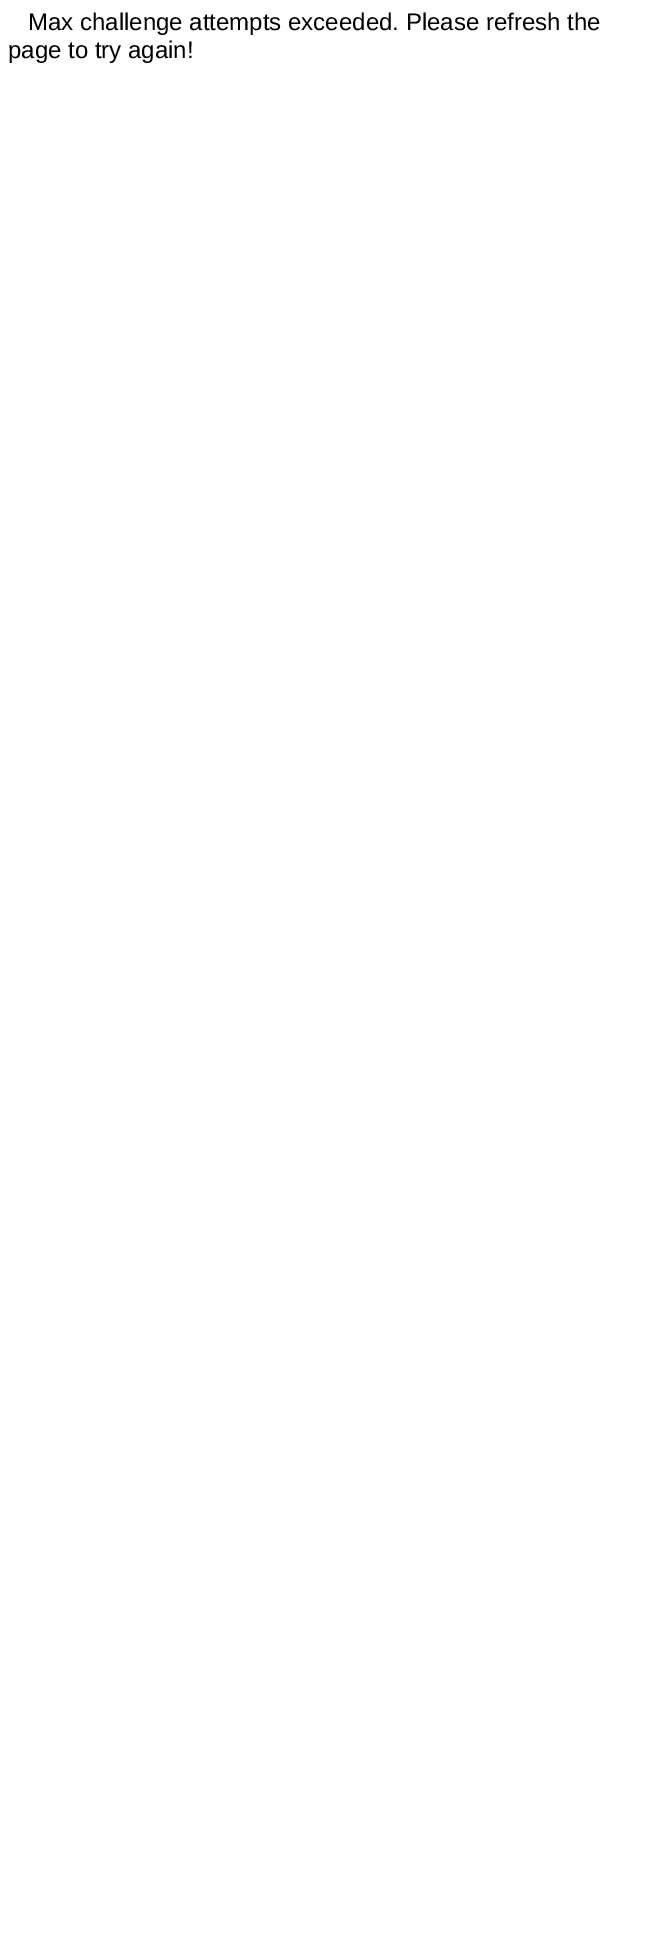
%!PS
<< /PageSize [664 1959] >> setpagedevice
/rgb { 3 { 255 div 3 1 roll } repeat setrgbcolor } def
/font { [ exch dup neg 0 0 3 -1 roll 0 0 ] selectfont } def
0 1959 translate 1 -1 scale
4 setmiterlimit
255 255 255 rgb
0 0 664 1959 rectfill
/LiberationSans-Regular 24 font
0 0 0 rgb
28 30 moveto (Max challenge attempts exceeded. Please refresh the) show
8 58 moveto (page to try again!) show
showpage
